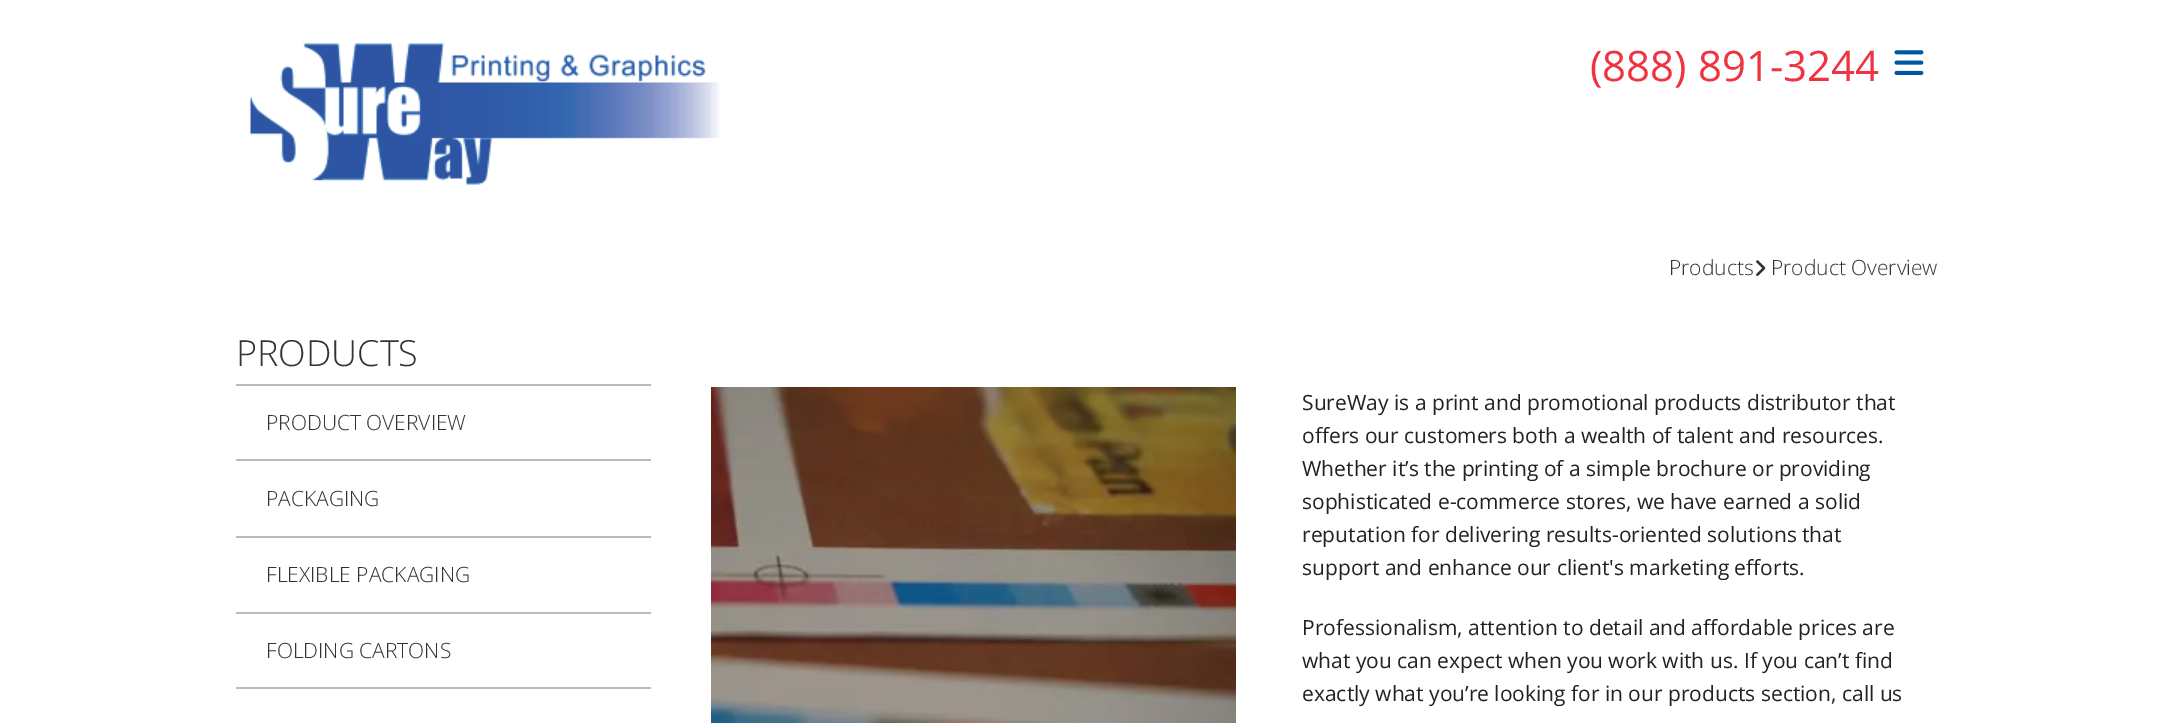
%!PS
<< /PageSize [2173 723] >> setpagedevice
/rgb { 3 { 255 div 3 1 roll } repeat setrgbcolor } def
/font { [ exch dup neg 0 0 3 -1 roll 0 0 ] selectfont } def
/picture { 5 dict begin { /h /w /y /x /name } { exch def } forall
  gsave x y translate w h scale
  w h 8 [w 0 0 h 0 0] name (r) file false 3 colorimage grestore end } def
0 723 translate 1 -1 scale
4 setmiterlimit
255 255 255 rgb
0 0 2173 723 rectfill
(img/1.rgb) 250 43 470 142 picture
(img/2.rgb) 1894 50 30 25 picture
(img/3.rgb) 1756 260 10 16 picture
[
  [236 384 415 2 187 187 187]
  [236 459 415 2 187 187 187]
  [236 536 415 2 187 187 187]
  [236 612 415 2 187 187 187]
  [236 687 415 2 187 187 187]
] { aload pop rgb rectfill } forall
(img/4.rgb) 711 387 525 336 picture
/OpenSans-Regular 42 font
239 51 64 rgb
1590 81 moveto (\(888\) 891-3244) show
/OpenSans-Light 21 font
51 51 51 rgb
1669 275 moveto (Products) show
1771 275 moveto (Product Overview) show
/OpenSans-Light 36 font
236 366 moveto (PRODUCTS) show
/OpenSans-Light 21 font
[
  [(PRODUCT OVERVIEW) 266 430]
  [(PACKAGING) 266 506]
  [(FLEXIBLE PACKAGING) 266 582]
  [(FOLDING CARTONS) 266 658]
] { aload pop moveto show } forall
/OpenSans-Regular 21 font
34 34 34 rgb
[
  [(SureWay is a print and promotional products distributor that) 1302 410]
  [(offers our customers both a wealth of talent and resources.) 1302 443]
  [(Whether it’s the printing of a simple brochure or providing) 1302 476]
  [(sophisticated e-commerce stores, we have earned a solid) 1302 509]
  [(reputation for delivering results-oriented solutions that) 1302 542]
  [(support and enhance our client's marketing efforts.) 1302 575]
  [(Professionalism, attention to detail and affordable prices are) 1302 635]
  [(what you can expect when you work with us. If you can’t find) 1302 668]
  [(exactly what you’re looking for in our products section, call us) 1302 701]
] { aload pop moveto show } forall
showpage
